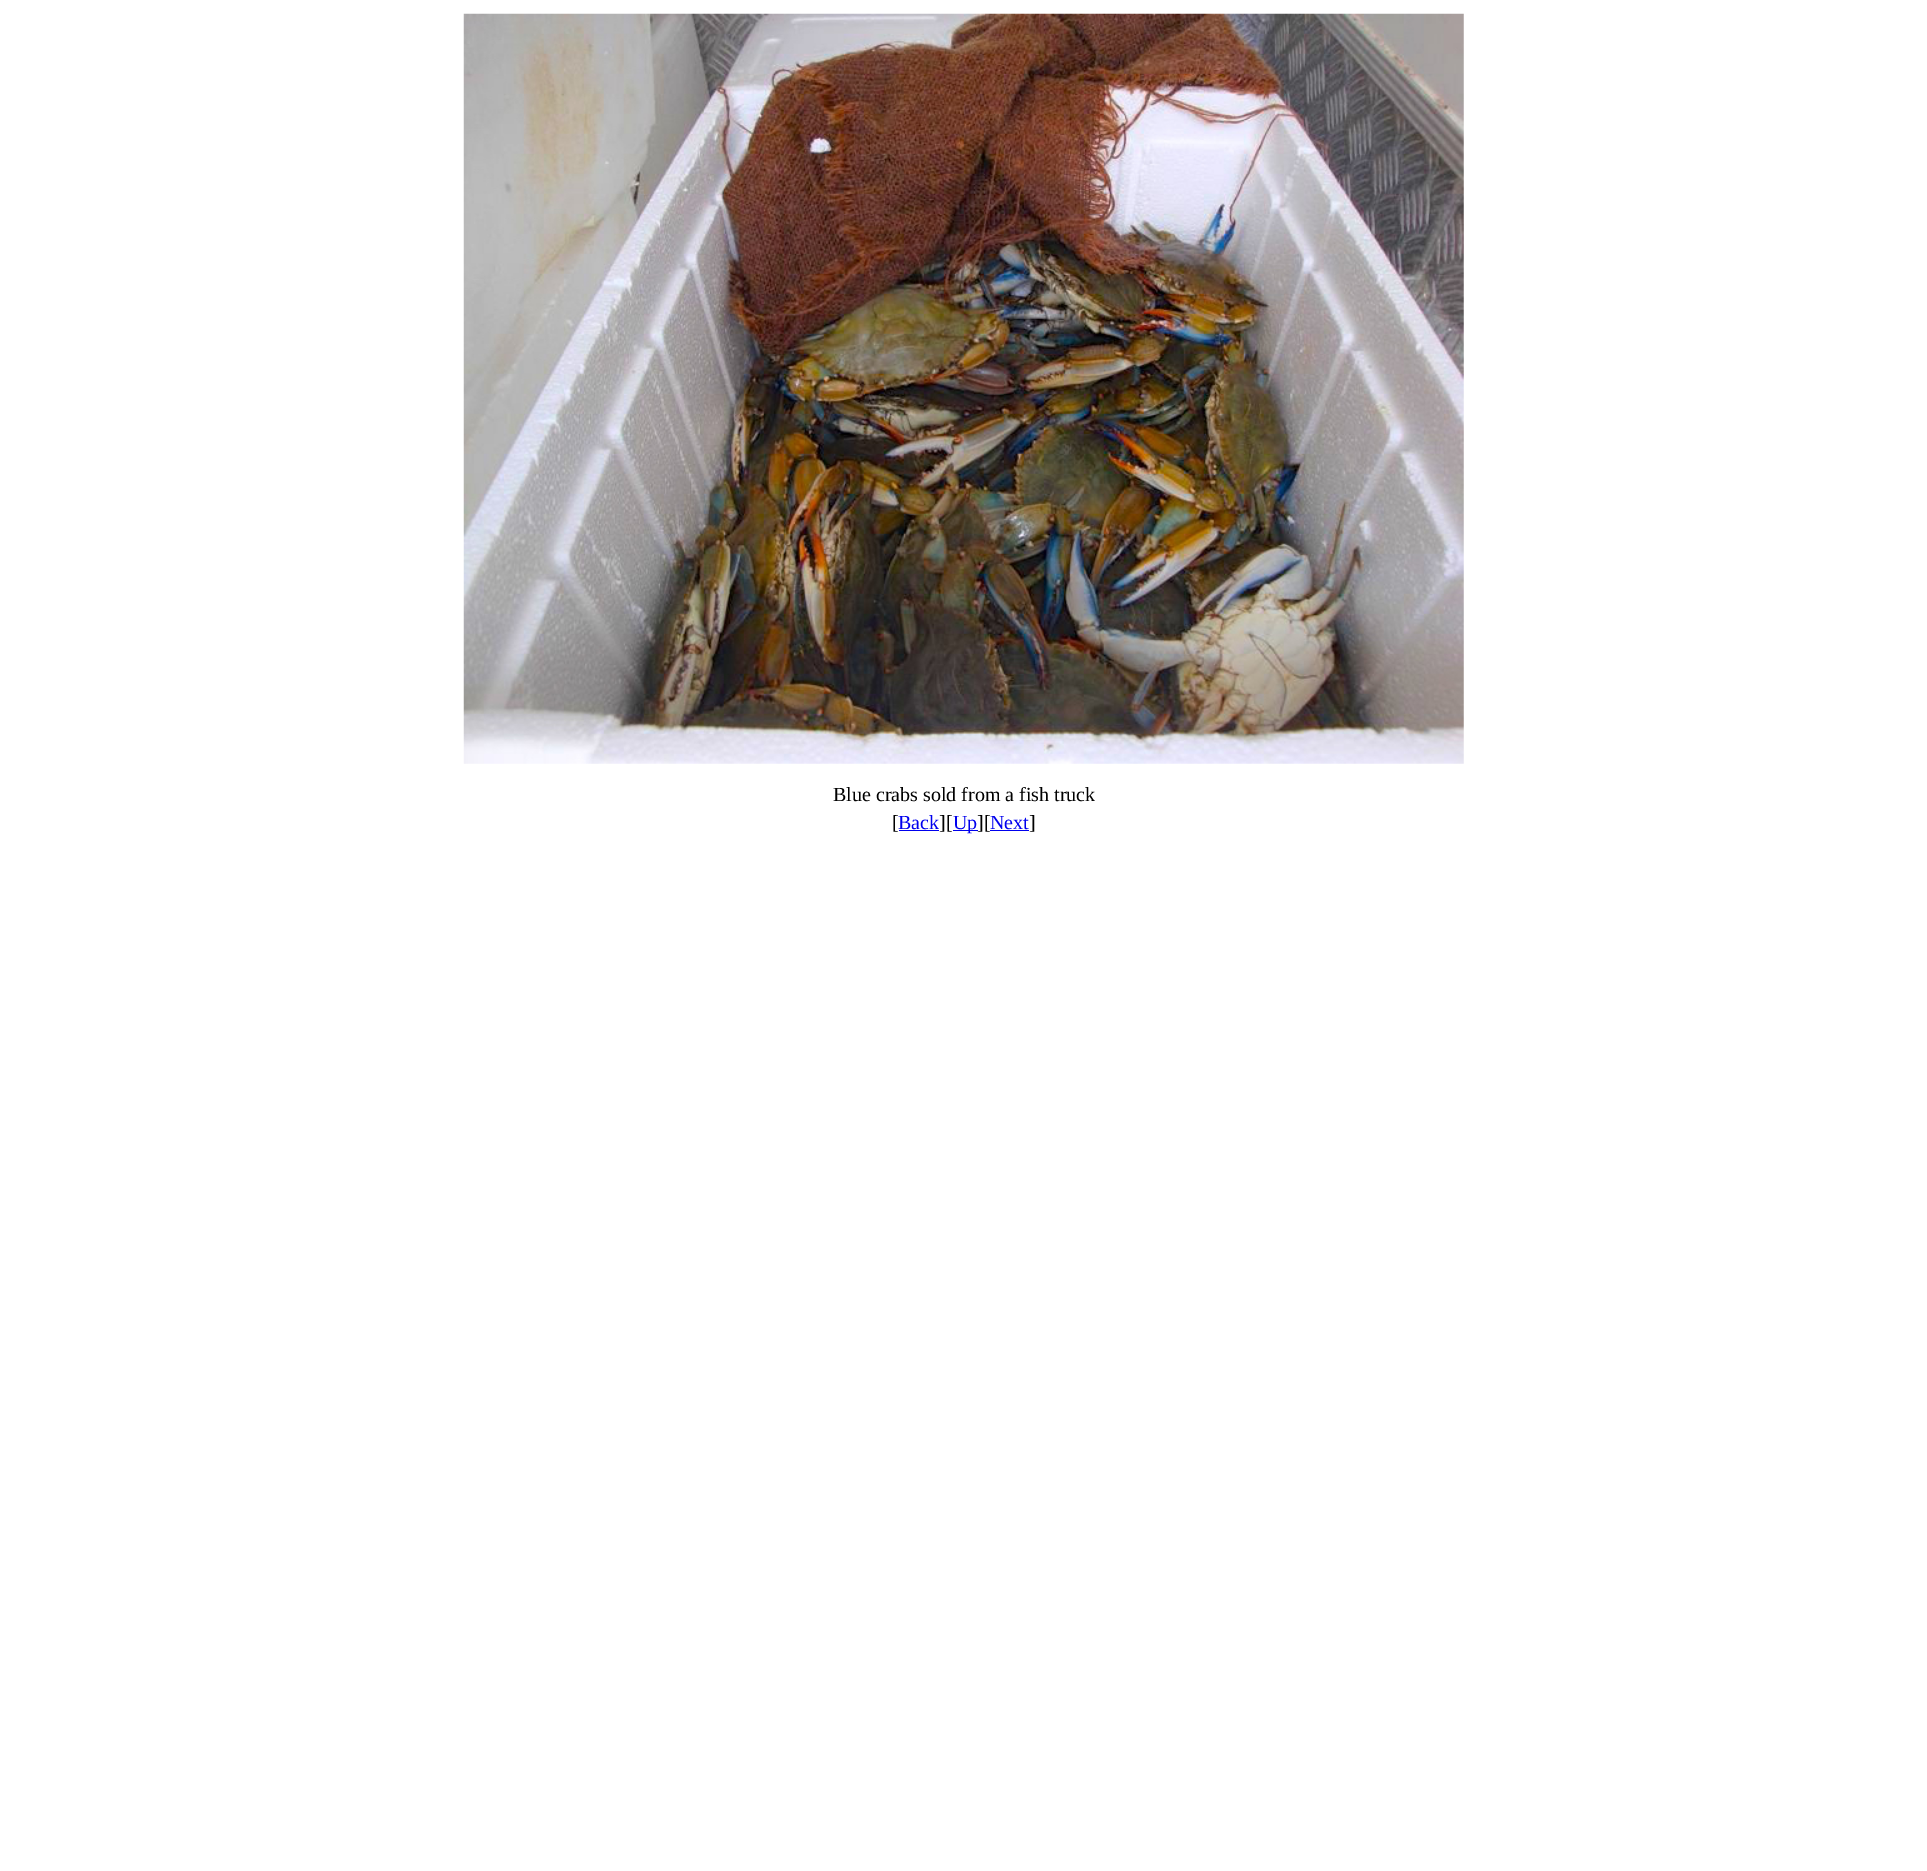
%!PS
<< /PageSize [1927 1871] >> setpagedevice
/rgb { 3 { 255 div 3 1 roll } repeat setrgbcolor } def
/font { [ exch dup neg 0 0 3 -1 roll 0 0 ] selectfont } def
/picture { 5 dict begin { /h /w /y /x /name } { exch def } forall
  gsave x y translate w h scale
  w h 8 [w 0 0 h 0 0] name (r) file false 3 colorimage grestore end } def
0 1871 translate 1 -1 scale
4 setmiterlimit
255 255 255 rgb
0 0 1927 1871 rectfill
(img/1.rgb) 463 13 1001 751 picture
[
  [899 830 40 1 0 0 238]
  [953 830 25 1 0 0 238]
  [990 830 39 1 0 0 238]
] { aload pop rgb rectfill } forall
/LiberationSerif-Regular 20 font
0 0 0 rgb
833 801 moveto (Blue crabs sold from a fish truck) show
892 829 moveto ([) show
0 0 238 rgb
898 829 moveto (Back) show
0 0 0 rgb
939 829 moveto (][) show
0 0 238 rgb
953 829 moveto (Up) show
0 0 0 rgb
977 829 moveto (][) show
0 0 238 rgb
990 829 moveto (Next) show
0 0 0 rgb
1029 829 moveto (]) show
showpage
